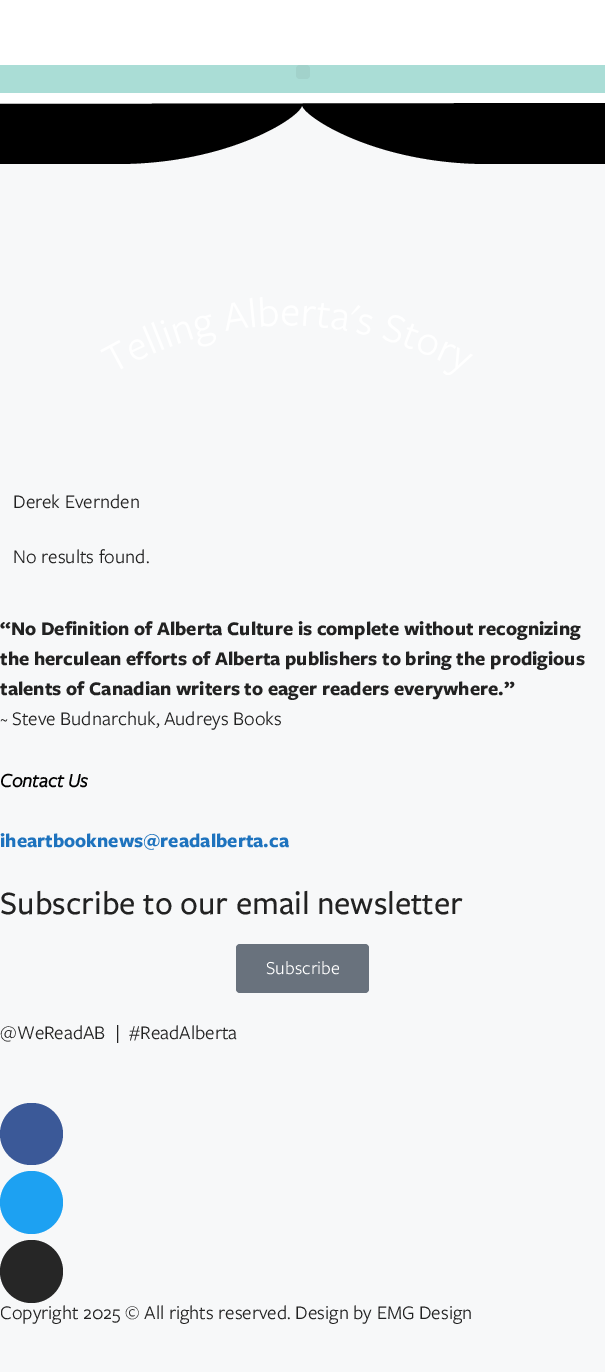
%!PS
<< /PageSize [605 1372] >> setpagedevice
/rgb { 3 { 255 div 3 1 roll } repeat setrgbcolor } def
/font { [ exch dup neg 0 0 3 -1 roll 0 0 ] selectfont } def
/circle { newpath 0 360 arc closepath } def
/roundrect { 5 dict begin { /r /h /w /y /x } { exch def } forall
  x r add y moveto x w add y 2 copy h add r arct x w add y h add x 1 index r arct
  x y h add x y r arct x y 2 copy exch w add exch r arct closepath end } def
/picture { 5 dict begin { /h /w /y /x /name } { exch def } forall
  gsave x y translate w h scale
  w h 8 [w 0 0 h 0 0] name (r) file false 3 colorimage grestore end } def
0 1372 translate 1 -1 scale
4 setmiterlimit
247 248 249 rgb
0 0 605 1372 rectfill
255 255 255 rgb
0 0 605 104 rectfill
170 221 214 rgb
0 65 605 28 rectfill
162 210 203 rgb
296 65 14 14 4 roundrect fill
0 0 0 rgb
117 164 moveto 230 164 302 116 302 105 curveto 303 116 375 164 488 164 curveto 605 164 lineto 605 103 lineto 0 104 lineto 0 164 lineto closepath fill
(img/1.rgb) 100 297 373 78 picture
105 114 125 rgb
236 944 133 49 4 roundrect fill
59 89 152 rgb
0 1103 63 62 31 roundrect fill
29 161 242 rgb
31.5 1202.5 31.5 circle fill
38 38 38 rgb
31.5 1271.5 31.5 circle fill
/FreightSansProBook-Regular 20 font
34 34 34 rgb
13 508 moveto (Derek Evernden) show
13 563 moveto (No results found.) show
/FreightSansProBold-Bold 20 font
[
  [(“No Definition of Alberta Culture is complete without recognizing) 0 635]
  [(the herculean efforts of Alberta publishers to bring the prodigious) 0 665]
  [(talents of Canadian writers to eager readers everywhere.”) 0 695]
] { aload pop moveto show } forall
/FreightSansProBook-Regular 20 font
0 725 moveto (~ Steve Budnarchuk, Audreys Books) show
/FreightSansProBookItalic-BoldItalic 20 font
0 0 0 rgb
0 787 moveto (Contact Us) show
/FreightSansProBold-Bold 20 font
30 115 190 rgb
0 847 moveto (iheartbooknews@readalberta.ca) show
/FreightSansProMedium-Medium 33.75 font
34 34 34 rgb
0 914 moveto (Subscribe to our email newsletter) show
/FreightSansProBook-Regular 19 font
255 255 255 rgb
266 974 moveto (Subscribe) show
/FreightSansProBook-Regular 20 font
34 34 34 rgb
0 1039 moveto (@WeReadAB  |  #ReadAlberta) show
0 1319 moveto (Copyright 2025 © All rights reserved. Design by EMG Design) show
showpage
